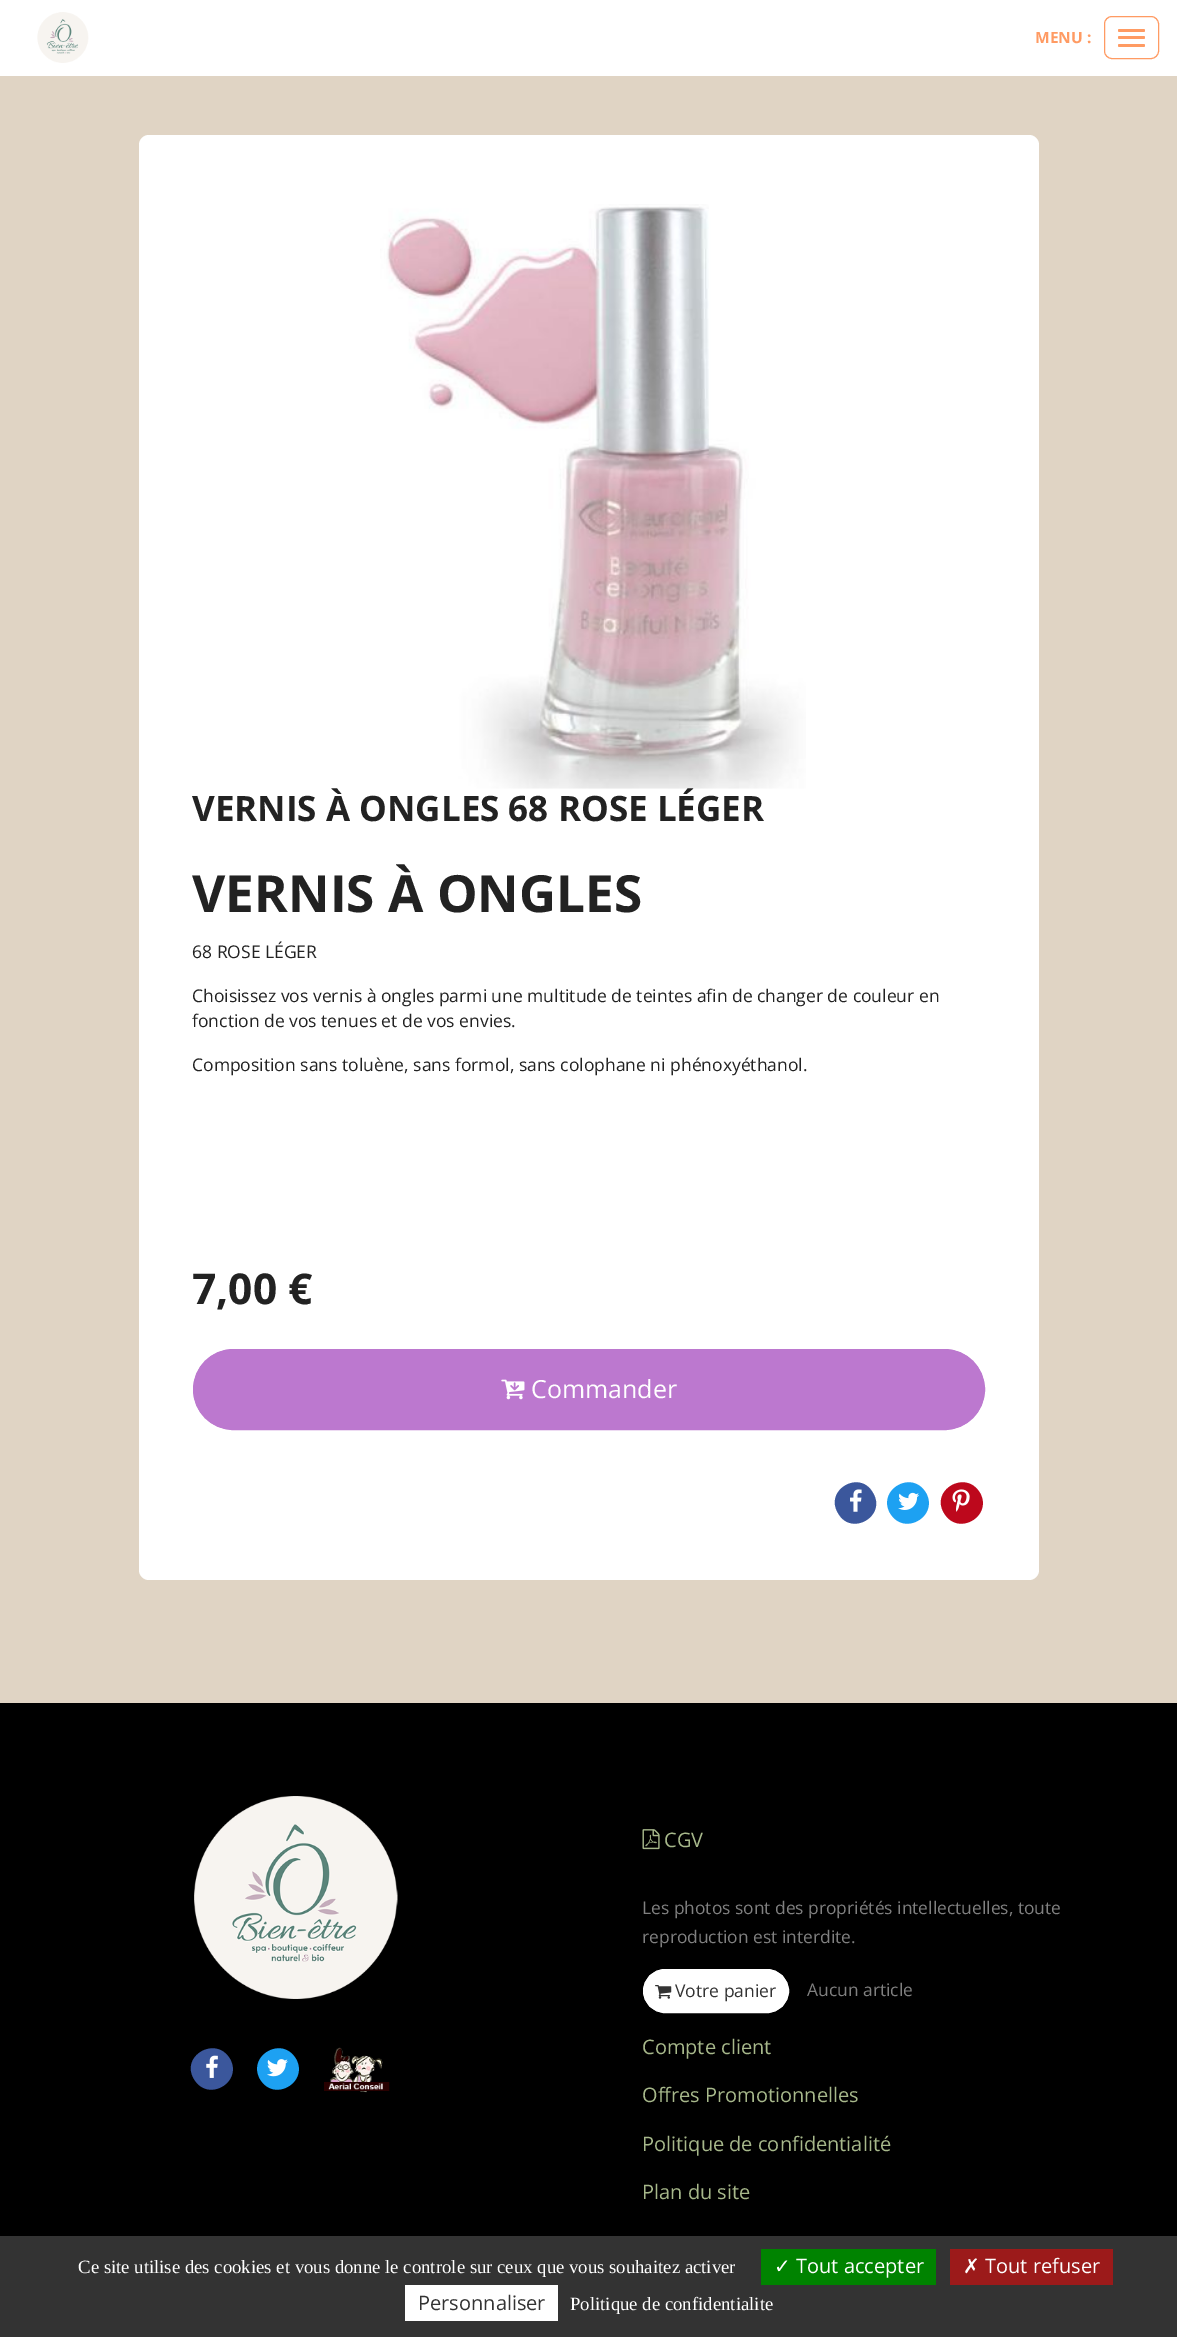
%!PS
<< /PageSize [1177 2337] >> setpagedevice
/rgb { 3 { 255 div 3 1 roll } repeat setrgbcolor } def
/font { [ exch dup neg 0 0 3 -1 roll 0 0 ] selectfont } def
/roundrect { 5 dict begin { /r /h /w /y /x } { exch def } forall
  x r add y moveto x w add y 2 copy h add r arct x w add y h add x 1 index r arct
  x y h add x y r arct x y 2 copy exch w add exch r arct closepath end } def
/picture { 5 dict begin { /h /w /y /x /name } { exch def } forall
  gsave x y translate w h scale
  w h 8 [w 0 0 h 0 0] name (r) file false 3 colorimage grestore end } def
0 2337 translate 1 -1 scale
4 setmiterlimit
224 212 196 rgb
0 0 1177 2337 rectfill
255 255 255 rgb
0 0 1177 76 rectfill
(img/1.rgb) 37 12 52 51 picture
255 155 99 rgb
1104.5 16.5 54 42 7.5 roundrect stroke
1118 29 27 3 1.5 roundrect fill
1118 36 27 3 1.5 roundrect fill
1118 44 27 3 1.5 roundrect fill
255 255 255 rgb
139 135 900 1445 10 roundrect fill
(img/2.rgb) 380 204 426 585 picture
188 120 207 rgb
193.5 1349.5 791 80 40 roundrect gsave fill grestore
stroke
(img/3.rgb) 501 1379 24 21 picture
59 87 156 rgb
873 1493 moveto 887 1516 851 1537 838 1513 curveto 824 1490 860 1469 873 1493 curveto closepath fill
(img/4.rgb) 850 1489 12 23 picture
29 161 242 rgb
926 1493 moveto 939 1516 904 1537 890 1513 curveto 877 1490 912 1469 926 1493 curveto closepath fill
(img/5.rgb) 898 1492 21 18 picture
189 8 28 rgb
980 1493 moveto 993 1516 958 1537 944 1513 curveto 930 1490 966 1469 980 1493 curveto closepath fill
(img/6.rgb) 952 1489 18 23 picture
0 0 0 rgb
0 1703 1177 533 rectfill
(img/7.rgb) 194 1796 204 203 picture
59 87 156 rgb
230 2059 moveto 243 2082 208 2103 194 2079 curveto 180 2056 216 2035 230 2059 curveto closepath fill
(img/8.rgb) 206 2055 12 23 picture
29 161 242 rgb
296 2059 moveto 309 2082 274 2103 260 2079 curveto 247 2056 282 2035 296 2059 curveto closepath fill
(img/9.rgb) 267 2059 21 18 picture
(img/10.rgb) 324 2047 66 46 picture
(img/11.rgb) 642 1829 18 21 picture
255 255 255 rgb
643.5 1969.5 145 43 21.5 roundrect gsave fill grestore
stroke
(img/12.rgb) 655 1985 17 14 picture
[
  [0 2236 1177 101 51 51 51]
  [761 2249 175 36 0 131 0]
  [950 2249 163 36 156 26 26]
  [405 2285 153 36 255 255 255]
] { aload pop rgb rectfill } forall
/OpenSans-Bold 15.5 font
255 155 99 rgb
1035 43 moveto (MENU :) show
/OpenSans-Bold 35 font
34 34 34 rgb
192 821 moveto (VERNIS À ONGLES 68 ROSE LÉGER) show
/OpenSans-Bold 51.25 font
192 912 moveto (VERNIS À ONGLES) show
/OpenSans-Regular 17.5 font
[
  [(68 ROSE LÉGER) 192 958]
  [(Choisissez vos vernis à ongles parmi une multitude de teintes afin de changer de couleur en) 192 1002]
  [(fonction de vos tenues et de vos envies.) 192 1027]
  [(Composition sans toluène, sans formol, sans colophane ni phénoxyéthanol.) 192 1071]
] { aload pop moveto show } forall
/OpenSans-Bold 42.5 font
192 1304 moveto (7,00 €) show
/OpenSans-Regular 25 font
255 255 255 rgb
531 1398 moveto (Commander) show
/OpenSans-Regular 20 font
167 184 139 rgb
664 1847 moveto (CGV) show
/OpenSans-Regular 17.4 font
128 128 128 rgb
642 1914 moveto (Les photos sont des propriétés intellectuelles, toute) show
642 1943 moveto (reproduction est interdite.) show
/OpenSans-Regular 17.5 font
51 51 51 rgb
675 1997 moveto (Votre panier) show
/OpenSans-Regular 17.4 font
128 128 128 rgb
807 1996 moveto (Aucun article) show
/OpenSans-Regular 20 font
167 184 139 rgb
[
  [(Compte client) 642 2054]
  [(Offres Promotionnelles) 642 2102]
  [(Politique de confidentialité) 642 2151]
  [(Plan du site) 642 2199]
] { aload pop moveto show } forall
/LiberationSerif-Regular 18.75 font
255 255 255 rgb
78 2273 moveto (Ce site utilise des cookies et vous donne le controle sur ceux que vous souhaitez activer) show
/DejaVuSans-Regular 20 font
774 2273 moveto (✓) show
/OpenSans-Regular 20 font
796 2273 moveto (Tout accepter) show
/DejaVuSans-Regular 20 font
963 2273 moveto (✗) show
/OpenSans-Regular 20 font
985 2273 moveto (Tout refuser) show
51 51 51 rgb
418 2310 moveto (Personnaliser) show
/LiberationSerif-Regular 18.75 font
255 255 255 rgb
570 2310 moveto (Politique de confidentialite) show
showpage
